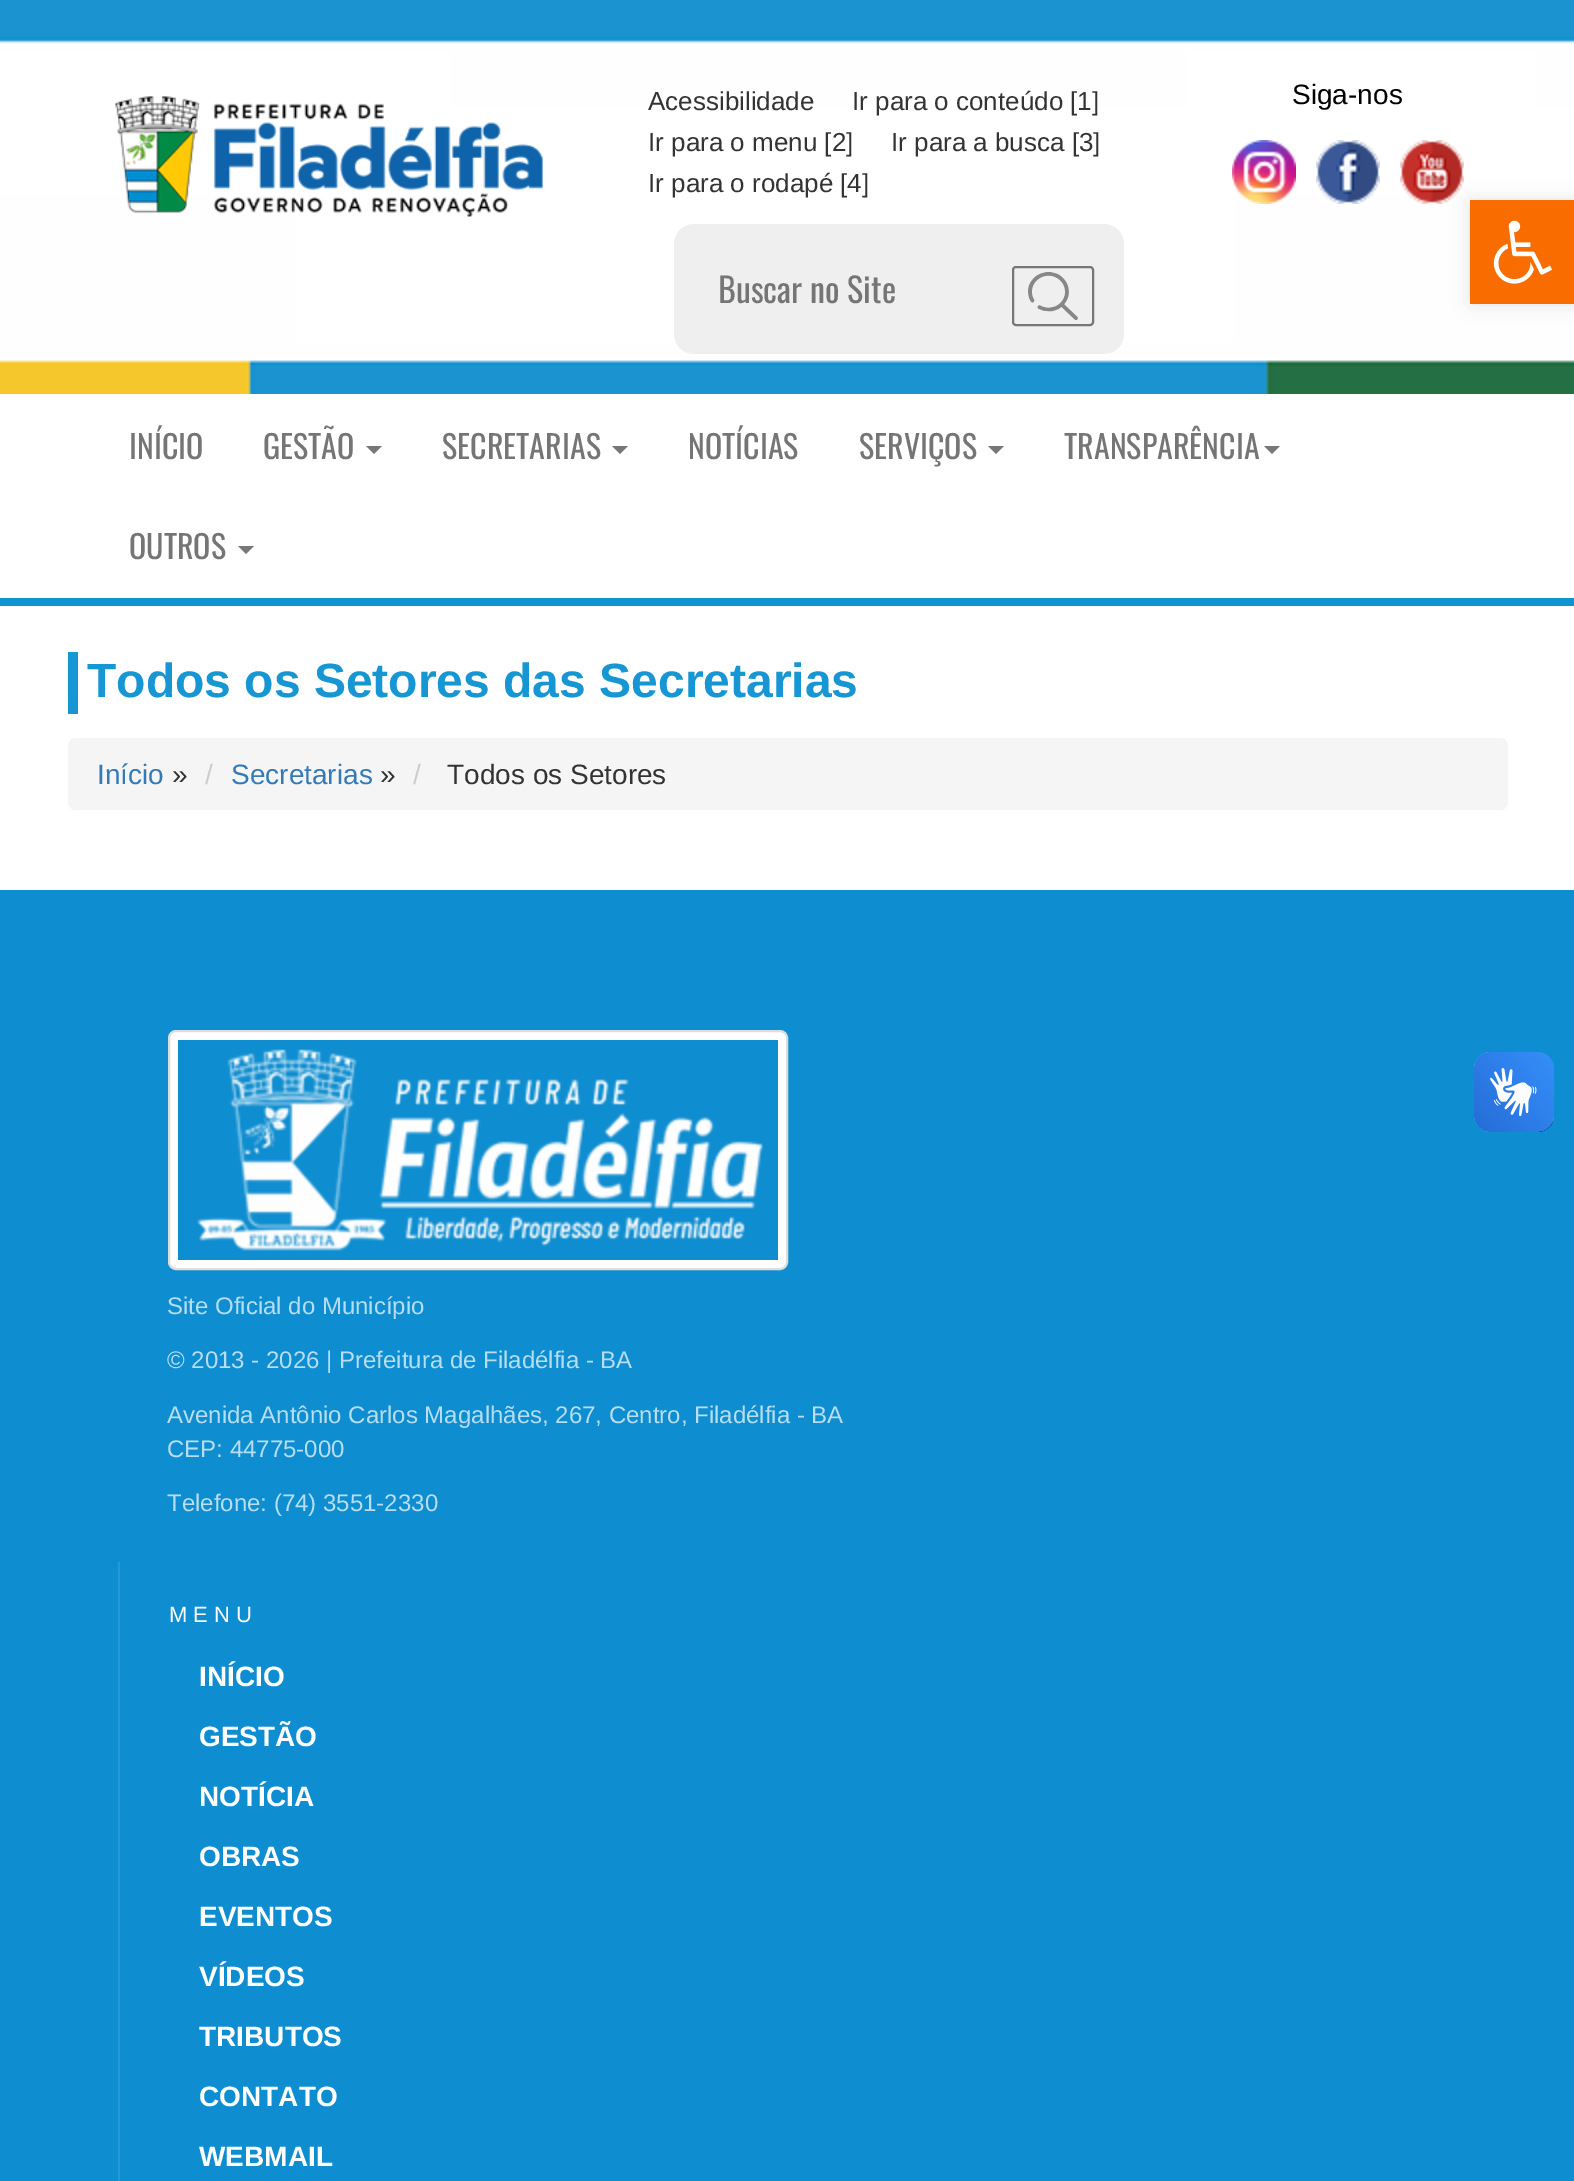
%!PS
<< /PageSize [1574 2181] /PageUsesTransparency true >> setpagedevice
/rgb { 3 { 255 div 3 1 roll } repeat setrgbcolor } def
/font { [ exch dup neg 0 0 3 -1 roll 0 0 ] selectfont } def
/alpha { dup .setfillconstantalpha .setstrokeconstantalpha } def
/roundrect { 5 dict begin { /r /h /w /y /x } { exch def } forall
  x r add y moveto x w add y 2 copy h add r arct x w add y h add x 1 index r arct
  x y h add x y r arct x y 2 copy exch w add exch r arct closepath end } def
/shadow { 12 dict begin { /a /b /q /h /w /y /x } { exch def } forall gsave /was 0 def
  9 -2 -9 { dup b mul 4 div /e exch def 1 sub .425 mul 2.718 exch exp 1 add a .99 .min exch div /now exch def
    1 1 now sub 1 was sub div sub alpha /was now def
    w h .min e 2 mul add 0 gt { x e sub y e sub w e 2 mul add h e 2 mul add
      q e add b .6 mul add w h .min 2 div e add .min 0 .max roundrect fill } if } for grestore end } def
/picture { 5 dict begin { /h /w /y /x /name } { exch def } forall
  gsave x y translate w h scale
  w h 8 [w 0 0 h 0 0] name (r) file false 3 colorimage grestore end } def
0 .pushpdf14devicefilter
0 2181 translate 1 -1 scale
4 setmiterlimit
255 255 255 rgb
0 0 1574 2181 rectfill
(img/1.rgb) 0 0 1574 394 picture
(img/2.rgb) 115 96 428 121 picture
239 239 239 rgb
674 224 450 130 20 roundrect fill
118 118 118 rgb
2 setlinewidth
1013 267 80 58 3 roundrect stroke
(img/3.rgb) 1028 272 50 48 picture
(img/4.rgb) 1232 140 64 64 picture
(img/5.rgb) 1316 140 64 64 picture
(img/6.rgb) 1400 140 64 64 picture
15 147 209 rgb
0 598 1574 8 rectfill
119 119 119 rgb
366 446 moveto 382 446 lineto 374 454 lineto closepath fill
612 446 moveto 628 446 lineto 620 454 lineto closepath fill
988 446 moveto 1004 446 lineto 996 454 lineto closepath fill
1264 446 moveto 1280 446 lineto 1272 454 lineto closepath fill
238 546 moveto 254 546 lineto 246 554 lineto closepath fill
22 150 210 rgb
68 652 10 62 rectfill
245 245 245 rgb
68 738 1440 72 8 roundrect fill
14 141 208 rgb
0 890 1574 1291 rectfill
(img/7.rgb) 1474 1052 80 80 picture
(img/8.rgb) 1474 1052 80 80 picture
255 255 255 rgb
169 1031 618 238 7 roundrect gsave fill grestore
221 221 221 rgb
stroke
(img/9.rgb) 178 1040 600 220 picture
38 152 213 rgb
118 1562 2 619 rectfill
0 0 0 rgb
1470 200 104 104 0 10 0.1 shadow
249 109 0 rgb
1470 200 104 104 rectfill
(img/10.rgb) 1493 220 59 64 picture
/LiberationSans-Regular 26 font
51 51 51 rgb
[
  [(Acessibilidade) 648 110]
  [(Ir para o conteúdo [1]) 852 110]
  [(Ir para o menu [2]) 648 151]
  [(Ir para a busca [3]) 891 151]
  [(Ir para o rodapé [4]) 648 192]
] { aload pop moveto show } forall
/Oswald-Regular 34 font
117 117 117 rgb
718 303 moveto (Buscar no Site) show
/LiberationSans-Regular 28 font
0 0 0 rgb
1292 104 moveto (Siga-nos) show
/Oswald-Regular 32 font
117 117 117 rgb
[
  [(INÍCIO) 129 459]
  [(GESTÃO) 263 459]
  [(SECRETARIAS) 442 459]
  [(NOTÍCIAS) 688 459]
  [(SERVIÇOS) 859 459]
  [(TRANSPARÊNCIA) 1064 459]
  [(OUTROS) 129 559]
] { aload pop moveto show } forall
/LiberationSans-Bold 48 font
22 150 210 rgb
87 697 moveto (Todos os Setores das Secretarias) show
/LiberationSans-Regular 28 font
51 122 183 rgb
97 784 moveto (Início) show
51 51 51 rgb
172 784 moveto (») show
204 204 204 rgb
205 784 moveto (/) show
51 122 183 rgb
231 784 moveto (Secretarias) show
51 51 51 rgb
380 784 moveto (») show
204 204 204 rgb
413 784 moveto (/) show
51 51 51 rgb
447 784 moveto (Todos os Setores) show
/LiberationSans-Regular 24 font
183 221 241 rgb
[
  [(Site Oficial do Município) 167 1314]
  [(© 2013 - 2026 | Prefeitura de Filadélfia - BA) 167 1368]
  [(Avenida Antônio Carlos Magalhães, 267, Centro, Filadélfia - BA) 167 1423]
  [(CEP: 44775-000) 167 1457]
  [(Telefone: \(74\) 3551-2330) 167 1511]
] { aload pop moveto show } forall
/LiberationSans-Regular 22 font
255 255 255 rgb
169 1622 moveto 6 0 (MENU) ashow
/LiberationSans-Bold 28 font
[
  [(INÍCIO) 199 1686]
  [(GESTÃO) 199 1746]
  [(NOTÍCIA) 199 1806]
  [(OBRAS) 199 1866]
  [(EVENTOS) 199 1926]
  [(VÍDEOS) 199 1986]
  [(TRIBUTOS) 199 2046]
  [(CONTATO) 199 2106]
  [(WEBMAIL) 199 2166]
] { aload pop moveto show } forall
.poppdf14devicefilter showpage
